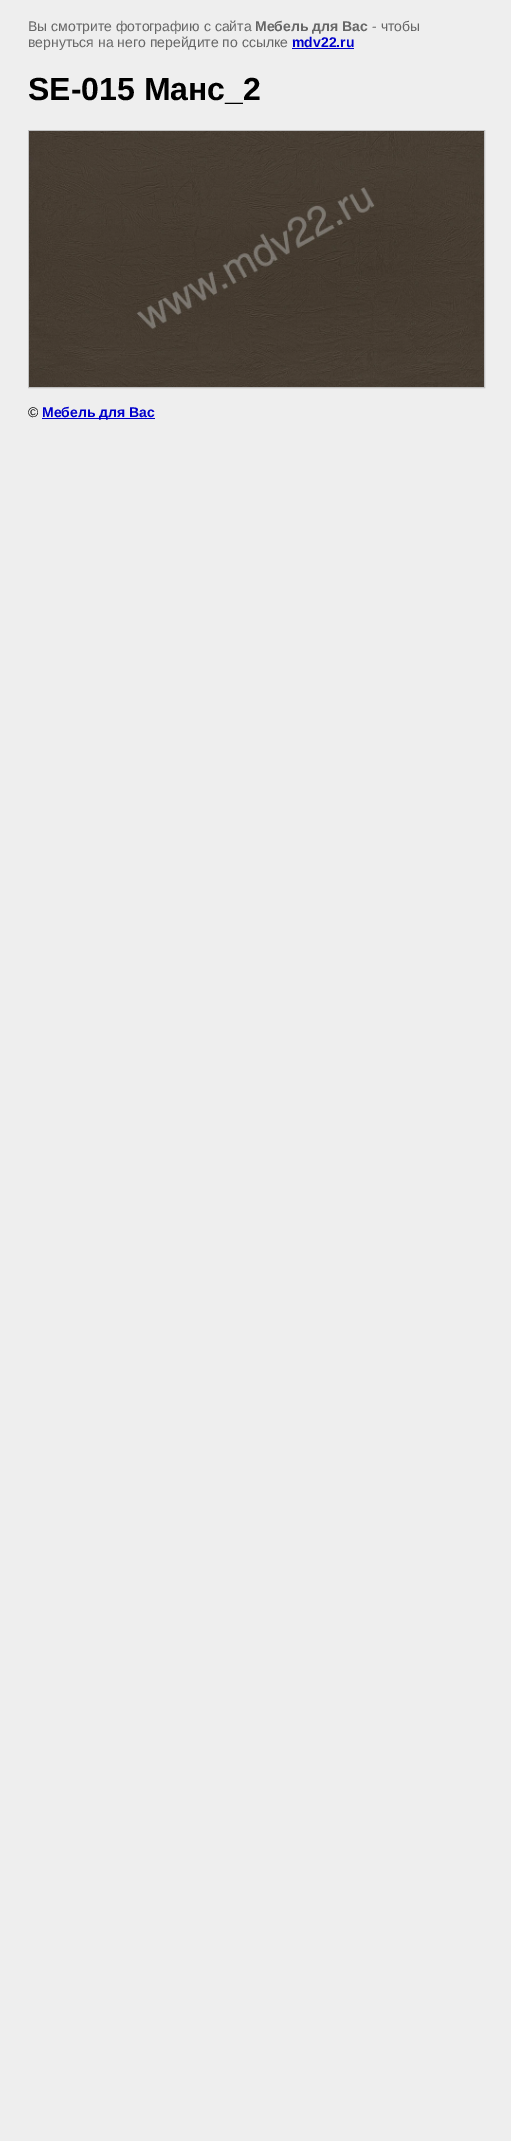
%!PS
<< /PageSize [511 2141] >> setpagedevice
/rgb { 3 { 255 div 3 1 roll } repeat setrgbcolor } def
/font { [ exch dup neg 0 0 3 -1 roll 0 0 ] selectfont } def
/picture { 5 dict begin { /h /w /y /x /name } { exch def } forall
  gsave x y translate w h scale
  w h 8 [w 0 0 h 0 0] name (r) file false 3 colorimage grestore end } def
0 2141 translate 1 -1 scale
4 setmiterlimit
238 238 238 rgb
0 0 511 2141 rectfill
0 0 204 rgb
292 48 62 1 rectfill
192 192 192 rgb
28.5 130.5 456 257 rectstroke
(img/1.rgb) 29 131 455 256 picture
0 0 204 rgb
42 418 113 1 rectfill
/LiberationSans-Regular 14 font
102 102 102 rgb
28 31 moveto (Вы смотрите фотографию с сайта) show
/LiberationSans-Bold 14 font
255 31 moveto (Мебель для Вас) show
/LiberationSans-Regular 14 font
372 31 moveto (- чтобы) show
28 47 moveto (вернуться на него перейдите по ссылке) show
/LiberationSans-Bold 14 font
0 0 204 rgb
292 47 moveto (mdv22.ru) show
/LiberationSans-Bold 32 font
0 0 0 rgb
28 100 moveto (SE-015 Манс_2) show
/LiberationSans-Regular 14 font
28 417 moveto (©) show
/LiberationSans-Bold 14 font
0 0 204 rgb
42 417 moveto (Мебель для Вас) show
showpage
